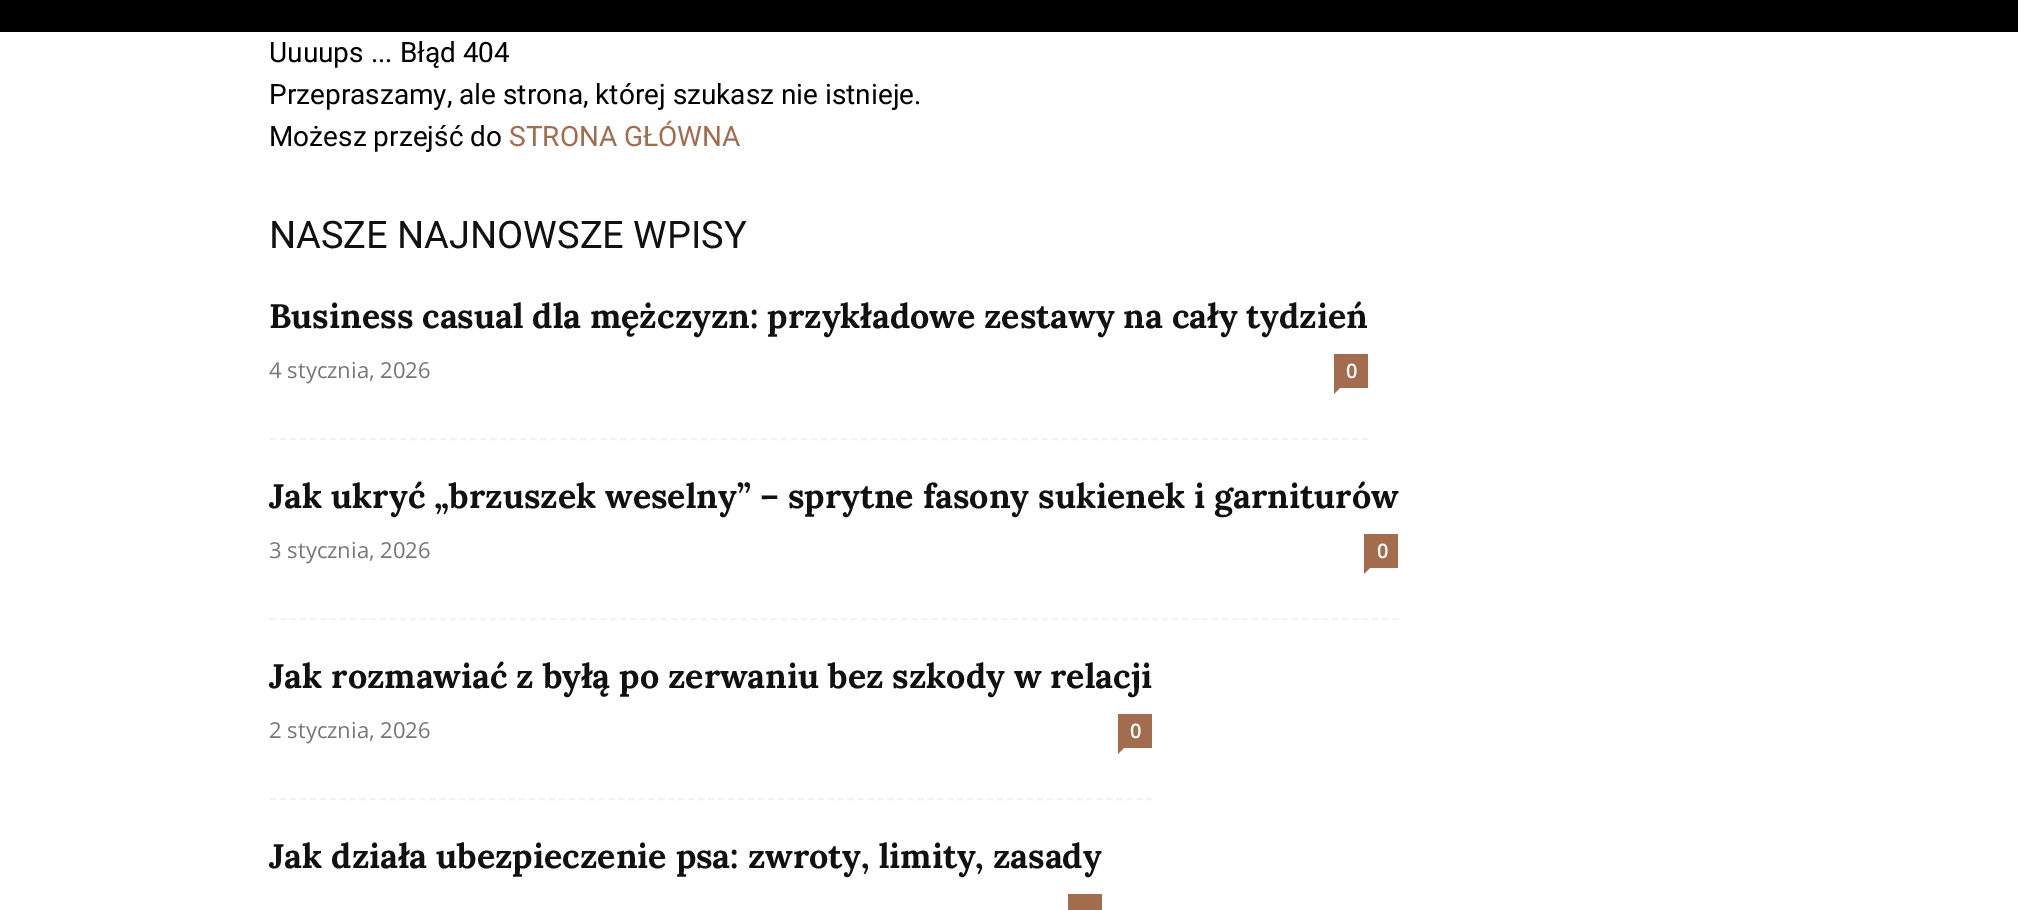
%!PS
<< /PageSize [2018 910] >> setpagedevice
/rgb { 3 { 255 div 3 1 roll } repeat setrgbcolor } def
/font { [ exch dup neg 0 0 3 -1 roll 0 0 ] selectfont } def
0 910 translate 1 -1 scale
4 setmiterlimit
255 255 255 rgb
0 0 2018 910 rectfill
0 0 0 rgb
0 0 2018 32 rectfill
242 242 242 rgb
2 setlinewidth
[6 4.02] 0 setdash
270 439 moveto 1368 439 lineto stroke
163 108 77 rgb
1334 354 34 34 rectfill
1334 388 moveto 1340 388 lineto 1334 394 lineto closepath fill
242 242 242 rgb
270 619 moveto 1398 619 lineto stroke
163 108 77 rgb
1364 534 34 34 rectfill
1364 568 moveto 1370 568 lineto 1364 574 lineto closepath fill
242 242 242 rgb
[6 3.96] 0 setdash
270 799 moveto 1152 799 lineto stroke
163 108 77 rgb
1118 714 34 34 rectfill
1118 748 moveto 1124 748 lineto 1118 754 lineto closepath fill
1068 894 34 16 rectfill
/Roboto-Regular 28 font
0 0 0 rgb
[
  [(Uuuups ... Błąd 404) 269 62]
  [(Przepraszamy, ale strona, której szukasz nie istnieje.) 269 104]
  [(Możesz przejść do) 269 146]
] { aload pop moveto show } forall
163 108 77 rgb
509 146 moveto (STRONA GŁÓWNA) show
/Roboto-Regular 38 font
17 17 17 rgb
269 248 moveto (NASZE NAJNOWSZE WPISY) show
/Lora-Bold 34 font
269 328 moveto (Business casual dla mężczyzn: przykładowe zestawy na cały tydzień) show
/OpenSans-Regular 22 font
118 118 118 rgb
269 378 moveto (4 stycznia, 2026) show
/OpenSans-SemiBold 20 font
255 255 255 rgb
1346 378 moveto (0) show
/Lora-Bold 34 font
17 17 17 rgb
269 508 moveto (Jak ukryć „brzuszek weselny” – sprytne fasony sukienek i garniturów) show
/OpenSans-Regular 22 font
118 118 118 rgb
269 558 moveto (3 stycznia, 2026) show
/OpenSans-SemiBold 20 font
255 255 255 rgb
1377 558 moveto (0) show
/Lora-Bold 34 font
17 17 17 rgb
269 688 moveto (Jak rozmawiać z byłą po zerwaniu bez szkody w relacji) show
/OpenSans-Regular 22 font
118 118 118 rgb
269 738 moveto (2 stycznia, 2026) show
/OpenSans-SemiBold 20 font
255 255 255 rgb
1130 738 moveto (0) show
/Lora-Bold 34 font
17 17 17 rgb
269 868 moveto (Jak działa ubezpieczenie psa: zwroty, limity, zasady) show
showpage
